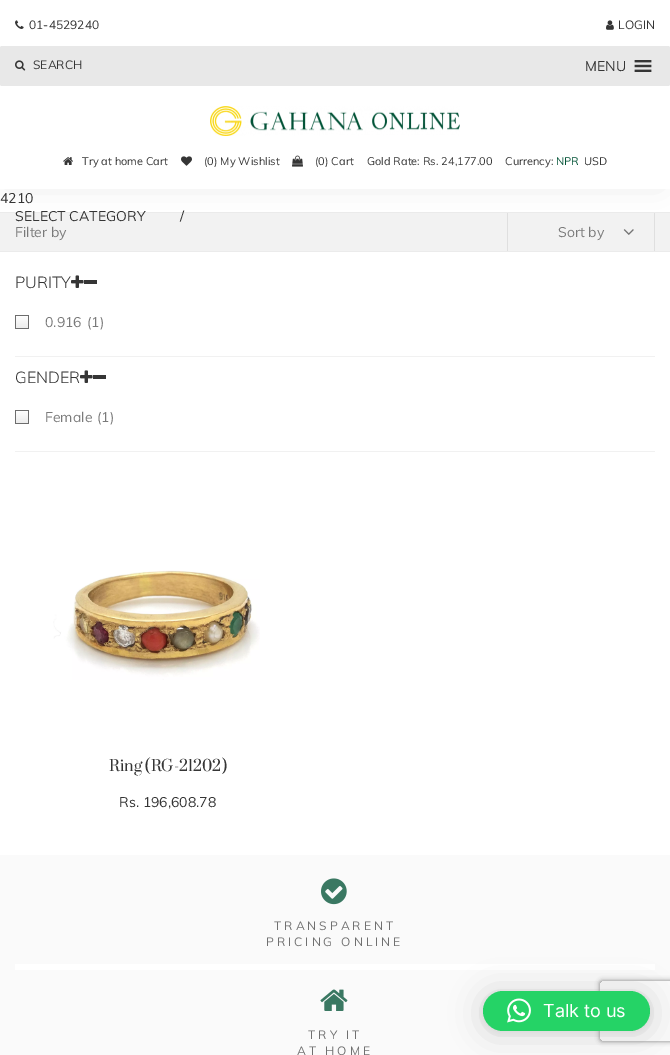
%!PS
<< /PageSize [670 1055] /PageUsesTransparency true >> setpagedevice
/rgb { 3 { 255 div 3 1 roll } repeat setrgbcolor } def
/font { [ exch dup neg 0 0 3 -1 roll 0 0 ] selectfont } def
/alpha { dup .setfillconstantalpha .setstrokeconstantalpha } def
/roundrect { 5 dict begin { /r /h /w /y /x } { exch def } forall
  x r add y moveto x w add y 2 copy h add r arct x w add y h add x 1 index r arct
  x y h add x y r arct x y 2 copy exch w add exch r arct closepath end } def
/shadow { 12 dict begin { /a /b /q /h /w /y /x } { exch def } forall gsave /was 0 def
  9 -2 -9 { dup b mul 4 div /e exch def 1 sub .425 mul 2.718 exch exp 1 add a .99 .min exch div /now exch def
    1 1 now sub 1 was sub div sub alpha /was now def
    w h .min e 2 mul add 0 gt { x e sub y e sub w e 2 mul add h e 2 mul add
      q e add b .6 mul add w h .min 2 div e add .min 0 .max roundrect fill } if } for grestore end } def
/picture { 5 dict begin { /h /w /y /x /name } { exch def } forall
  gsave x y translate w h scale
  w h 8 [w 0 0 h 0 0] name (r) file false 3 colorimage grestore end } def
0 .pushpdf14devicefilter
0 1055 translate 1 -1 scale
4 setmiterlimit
255 255 255 rgb
0 0 670 1055 rectfill
[
  [0 213 670 38 242 242 242]
  [0 212 670 1 235 235 235]
  [654 213 1 38 223 223 223]
  [507 213 1 38 223 223 223]
] { aload pop rgb rectfill } forall
(img/9.rgb) 623 229 11 6 picture
gsave
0 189 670 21 rectclip
203 203 203 rgb
10 15 650 169 0 15 0.5 shadow
grestore
(img/1.rgb) 15 20 9 9 picture
232 232 232 rgb
0 46 670 40 2 roundrect fill
(img/2.rgb) 15 60 11 11 picture
(img/3.rgb) 606 20 8 10 picture
(img/4.rgb) 634 60 18 12 picture
(img/5.rgb) 210 106 250 30 picture
(img/6.rgb) 63 157 10 8 picture
(img/7.rgb) 181 156 11 10 picture
(img/8.rgb) 292 155 11 12 picture
[
  [0 251 670 1 235 235 235]
  [15 356 640 1 241 241 241]
  [84 280 13 4 53 53 53]
] { aload pop rgb rectfill } forall
(img/11.rgb) 15 315 14 14 picture
241 241 241 rgb
15 451 640 1 rectfill
(img/12.rgb) 80 370 13 13 picture
53 53 53 rgb
93 375 13 4 rectfill
(img/11.rgb) 15 410 14 14 picture
(img/13.rgb) 53 570 207 110 picture
250 250 250 rgb
0 855 670 200 rectfill
(img/14.rgb) 321 878 26 27 picture
255 255 255 rgb
15 964 640 6 rectfill
(img/15.rgb) 320 989 28 22 picture
0 0 0 rgb
483 993 167 40 20 16 0.16 shadow
483 992 167 40 20 3 0.06 shadow
gsave
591 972 moveto 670 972 lineto 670 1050 lineto 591 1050 lineto closepath 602 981 moveto 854 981 lineto 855 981 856 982 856 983 curveto 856 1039 lineto 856 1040 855 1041 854 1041 curveto 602 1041 lineto 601 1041 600 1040 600 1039 curveto 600 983 lineto 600 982 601 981 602 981 curveto closepath eoclip newpath
128 128 128 rgb
600 981 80 60 2 2.5 1 shadow
grestore
37 211 102 rgb
483 991 167 40 20 roundrect fill
(img/16.rgb) 507 998 24 25 picture
/Muli-Regular 12 font
53 53 53 rgb
[
  [(01-4529240) 29 29]
  [(SEARCH) 33 69]
  [(LOGIN) 618 29]
] { aload pop moveto show } forall
/Muli-Regular 14 font
585 71 moveto (MENU) show
/Muli-Regular 11 font
[
  [(Try at home Cart) 82 165]
  [(\(0\) My Wishlist) 204 165]
  [(\(0\) Cart) 315 165]
  [(Gold Rate: Rs. 24,177.00) 367 165]
  [(Currency:) 505 165]
] { aload pop moveto show } forall
0 81 52 rgb
556 165 moveto (NPR) show
53 53 53 rgb
584 165 moveto (USD) show
/Muli-Regular 14 font
[
  [(4210) 0 203]
  [(SELECT CATEGORY) 15 221]
  [(/) 180 221]
] { aload pop moveto show } forall
122 122 122 rgb
15 237 moveto (Filter by) show
558 237 moveto (Sort by) show
/Muli-Light 16 font
53 53 53 rgb
15 288 moveto (PURITY) show
(img/10.rgb) 71 275 13 13 picture
/Muli-Regular 14 font
122 122 122 rgb
45 327 moveto (0.916) show
87 327 moveto (\(1\)) show
/Muli-Light 16 font
53 53 53 rgb
15 383 moveto (GENDER) show
/Muli-Regular 14 font
122 122 122 rgb
45 422 moveto (Female) show
97 422 moveto (\(1\)) show
/Prata-Regular 15 font
53 53 53 rgb
109 771 moveto (Ring \(RG-21202\)) show
/Muli-Regular 14 font
119 807 moveto (Rs. 196,608.78) show
/Muli-Regular 12 font
112 112 112 rgb
274 930 moveto 3 0 (TRANSPARENT) ashow
266 946 moveto 3 0 (PRICING ONLINE) ashow
308 1039 moveto 3 0 (TRY IT) ashow
297 1055 moveto 3 0 (AT HOME) ashow
/Inter-Regular 18 font
255 255 255 rgb
543 1017 moveto (Talk to us) show
.poppdf14devicefilter showpage
